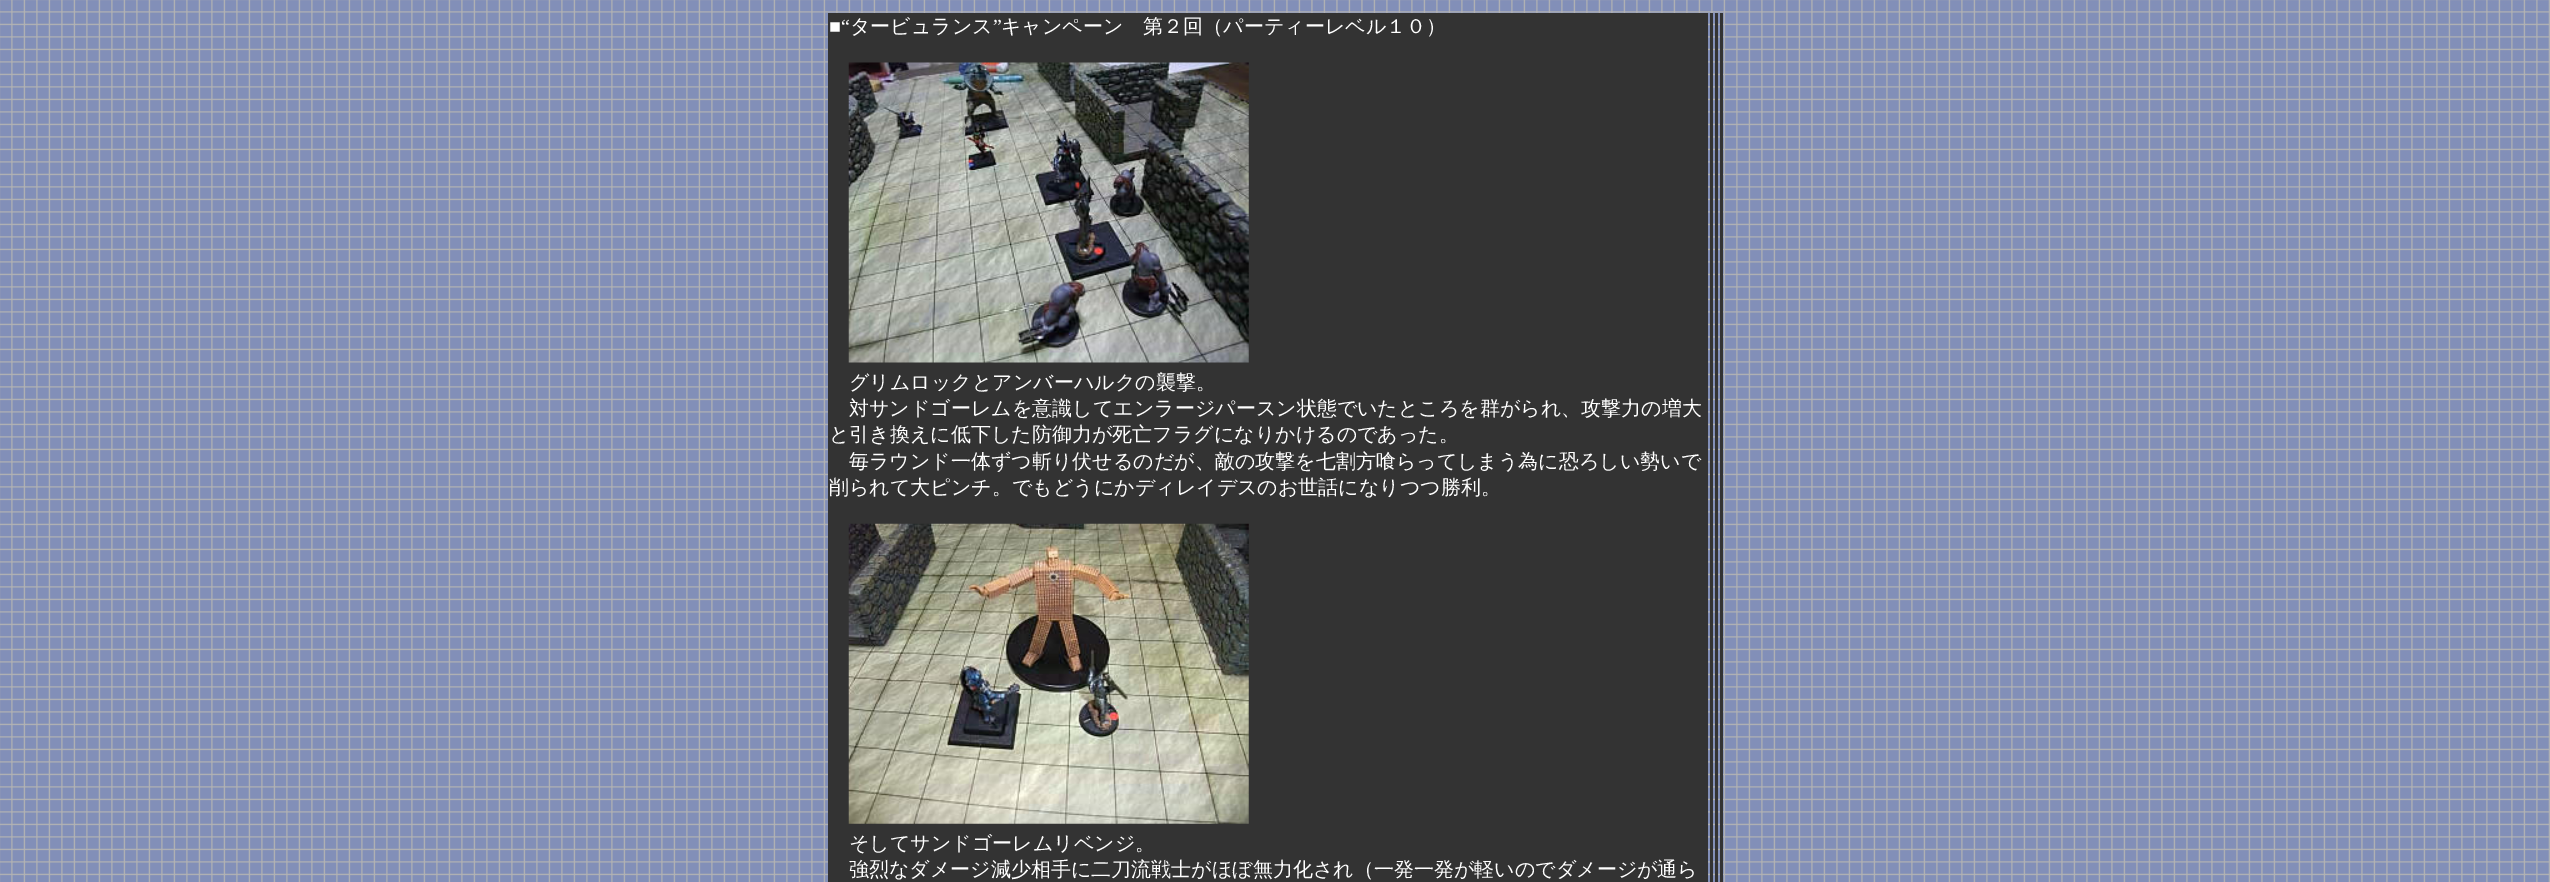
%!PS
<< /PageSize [2550 882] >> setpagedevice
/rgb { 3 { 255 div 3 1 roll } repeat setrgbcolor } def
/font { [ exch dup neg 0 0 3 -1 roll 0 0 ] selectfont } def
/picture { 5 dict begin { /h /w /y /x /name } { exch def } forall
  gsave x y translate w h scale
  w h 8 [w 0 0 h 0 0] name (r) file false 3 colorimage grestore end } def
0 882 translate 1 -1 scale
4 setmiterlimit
255 255 255 rgb
0 0 2550 882 rectfill
(img/1.rgb) 0 0 2550 882 picture
51 51 51 rgb
828 13 880 869 rectfill
(img/2.rgb) 848 62 401 301 picture
(img/3.rgb) 848 523 401 301 picture
[
  [1710 13 3 869 51 51 51]
  [1715 13 3 869 51 51 51]
  [1720 13 3 869 51 51 51]
] { aload pop rgb rectfill } forall
/LiberationSerif-Regular 20 font
255 255 255 rgb
829 33 moveto (■“) show
/WenQuanYiZenHei-Medium 20 font
850 33 moveto (タービュランス) show
/LiberationSerif-Regular 20 font
993 33 moveto (”) show
/WenQuanYiZenHei-Medium 20 font
[
  [(キャンペーン　第２回（パーティーレベル１０）) 1001 33]
  [(グリムロックとアンバーハルクの襲撃。) 849 389]
  [(対サンドゴーレムを意識してエンラージパースン状態でいたところを群がられ、攻撃力の増大) 849 415]
  [(と引き換えに低下した防御力が死亡フラグになりかけるのであった。) 829 441]
  [(毎ラウンド一体ずつ斬り伏せるのだが、敵の攻撃を七割方喰らってしまう為に恐ろしい勢いで) 849 468]
  [(削られて大ピンチ。でもどうにかディレイデスのお世話になりつつ勝利。) 829 494]
  [(そしてサンドゴーレムリベンジ。) 849 850]
  [(強烈なダメージ減少相手に二刀流戦士がほぼ無力化され（一発一発が軽いのでダメージが通ら) 849 876]
] { aload pop moveto show } forall
showpage
